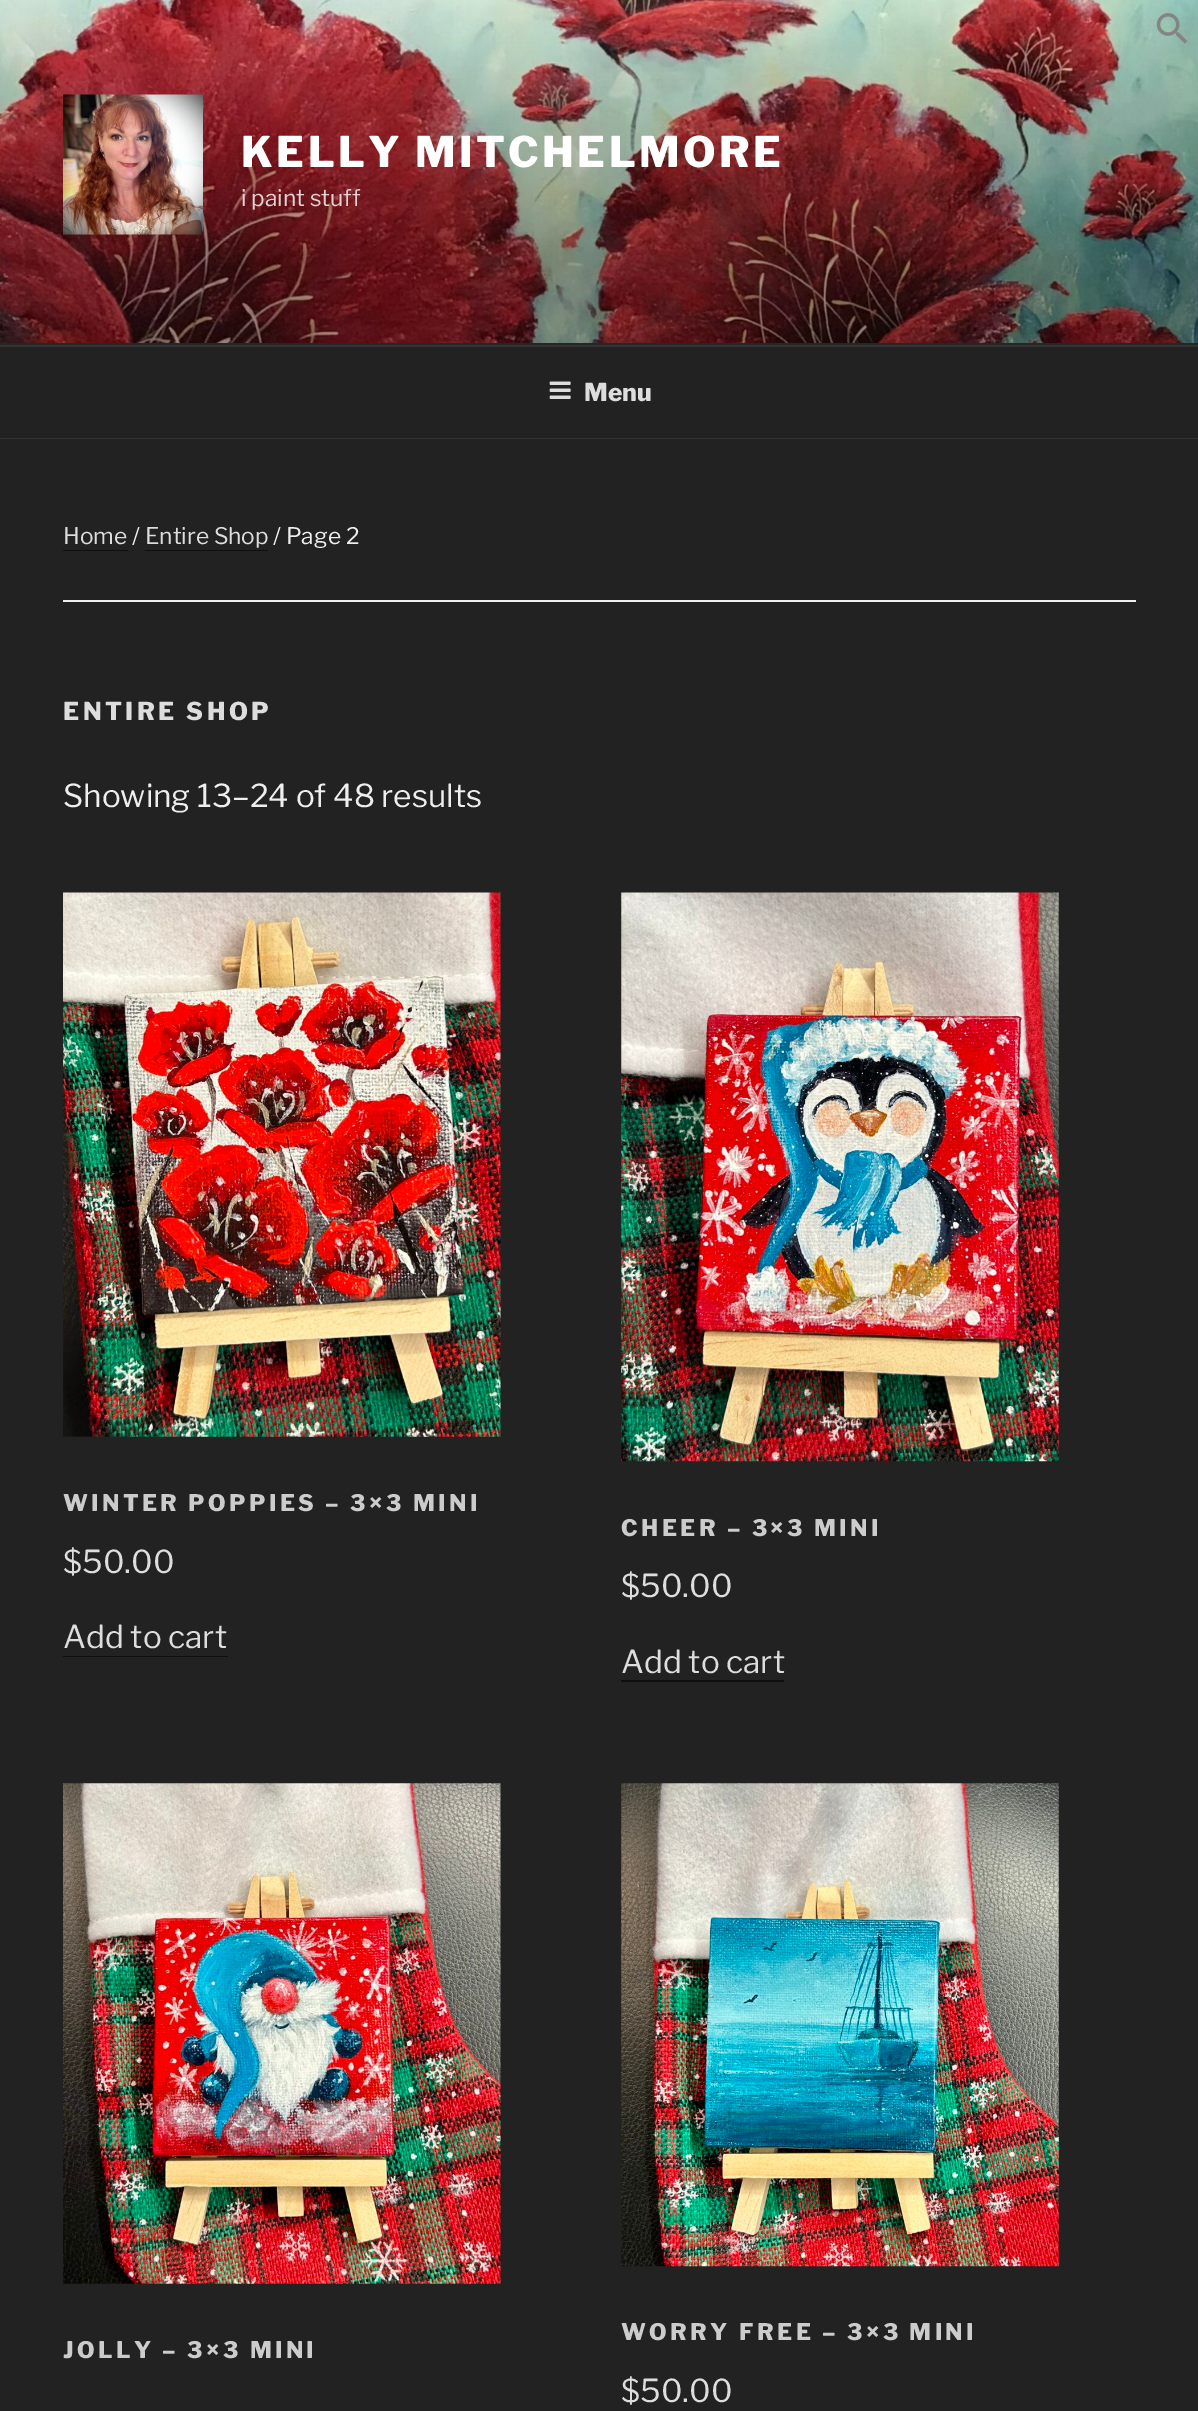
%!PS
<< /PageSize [1198 2411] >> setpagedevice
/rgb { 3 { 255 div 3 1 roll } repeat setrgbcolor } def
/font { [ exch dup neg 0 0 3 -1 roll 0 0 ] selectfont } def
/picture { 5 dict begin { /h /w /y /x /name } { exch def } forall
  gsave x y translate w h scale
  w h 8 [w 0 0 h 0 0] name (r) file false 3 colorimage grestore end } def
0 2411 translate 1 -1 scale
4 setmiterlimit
38 38 38 rgb
0 0 1198 2411 rectfill
(img/2.rgb) 0 0 1198 343 picture
(img/1.rgb) 1156 13 32 31 picture
(img/3.rgb) 63 94 140 141 picture
[
  [0 347 1198 91 34 34 34]
  [0 345 1198 2 51 51 51]
  [0 438 1198 1 51 51 51]
] { aload pop rgb rectfill } forall
(img/4.rgb) 549 381 22 18 picture
34 34 34 rgb
0 439 1198 1972 rectfill
238 238 238 rgb
63 600 1073 2 rectfill
15 15 15 rgb
63 550 moveto 63 551 lineto 128 551 lineto 128 523 lineto 128 550 lineto closepath fill
145 523 moveto 145 551 lineto 268 551 lineto 268 523 lineto 268 550 lineto 145 550 lineto closepath fill
(img/5.rgb) 63 892 438 545 picture
63 1656 moveto 63 1657 lineto 228 1657 lineto 228 1621 lineto 228 1656 lineto closepath fill
(img/6.rgb) 621 892 438 570 picture
621 1645 moveto 621 1682 lineto 784 1682 lineto 784 1680 lineto 621 1680 lineto closepath fill
(img/7.rgb) 63 1783 438 501 picture
(img/8.rgb) 621 1783 438 484 picture
/LibreFranklin-Thin 42 font
255 255 255 rgb
241 167 moveto 3.4 0 (KELLY MITCHELMORE) ashow
/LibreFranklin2-Thin 22.75 font
226 209 210 rgb
241 206 moveto (i paint stuff) show
/LibreFranklin-Thin 24.5 font
221 221 221 rgb
584 401 moveto (Menu) show
/LibreFranklin2-Thin 22.75 font
63 544 moveto (Home) show
238 238 238 rgb
132 544 moveto (/) show
221 221 221 rgb
145 544 moveto (Entire Shop) show
238 238 238 rgb
273 544 moveto (/ Page 2) show
/LibreFranklin-Thin 24.5 font
221 221 221 rgb
63 720 moveto 3.5 0 (ENTIRE SHOP) ashow
/LibreFranklin2-Thin 31.5 font
238 238 238 rgb
63 807 moveto (Showing 13–24 of 48 results) show
/LibreFranklin-Thin 22.75 font
204 204 204 rgb
63 1511 moveto 3.4 0 (WINTER POPPIES – 3×3 MINI) ashow
/LibreFranklin2-Thin 31.5 font
221 221 221 rgb
63 1573 moveto ($50.00) show
63 1648 moveto (Add to cart) show
/LibreFranklin-Thin 22.75 font
204 204 204 rgb
621 1536 moveto 3.4 0 (CHEER – 3×3 MINI) ashow
/LibreFranklin2-Thin 31.5 font
221 221 221 rgb
621 1597 moveto ($50.00) show
621 1673 moveto (Add to cart) show
/LibreFranklin-Thin 22.75 font
204 204 204 rgb
63 2358 moveto 3.4 0 (JOLLY – 3×3 MINI) ashow
621 2340 moveto 3.4 0 (WORRY FREE – 3×3 MINI) ashow
/LibreFranklin2-Thin 31.5 font
221 221 221 rgb
621 2402 moveto ($50.00) show
showpage
